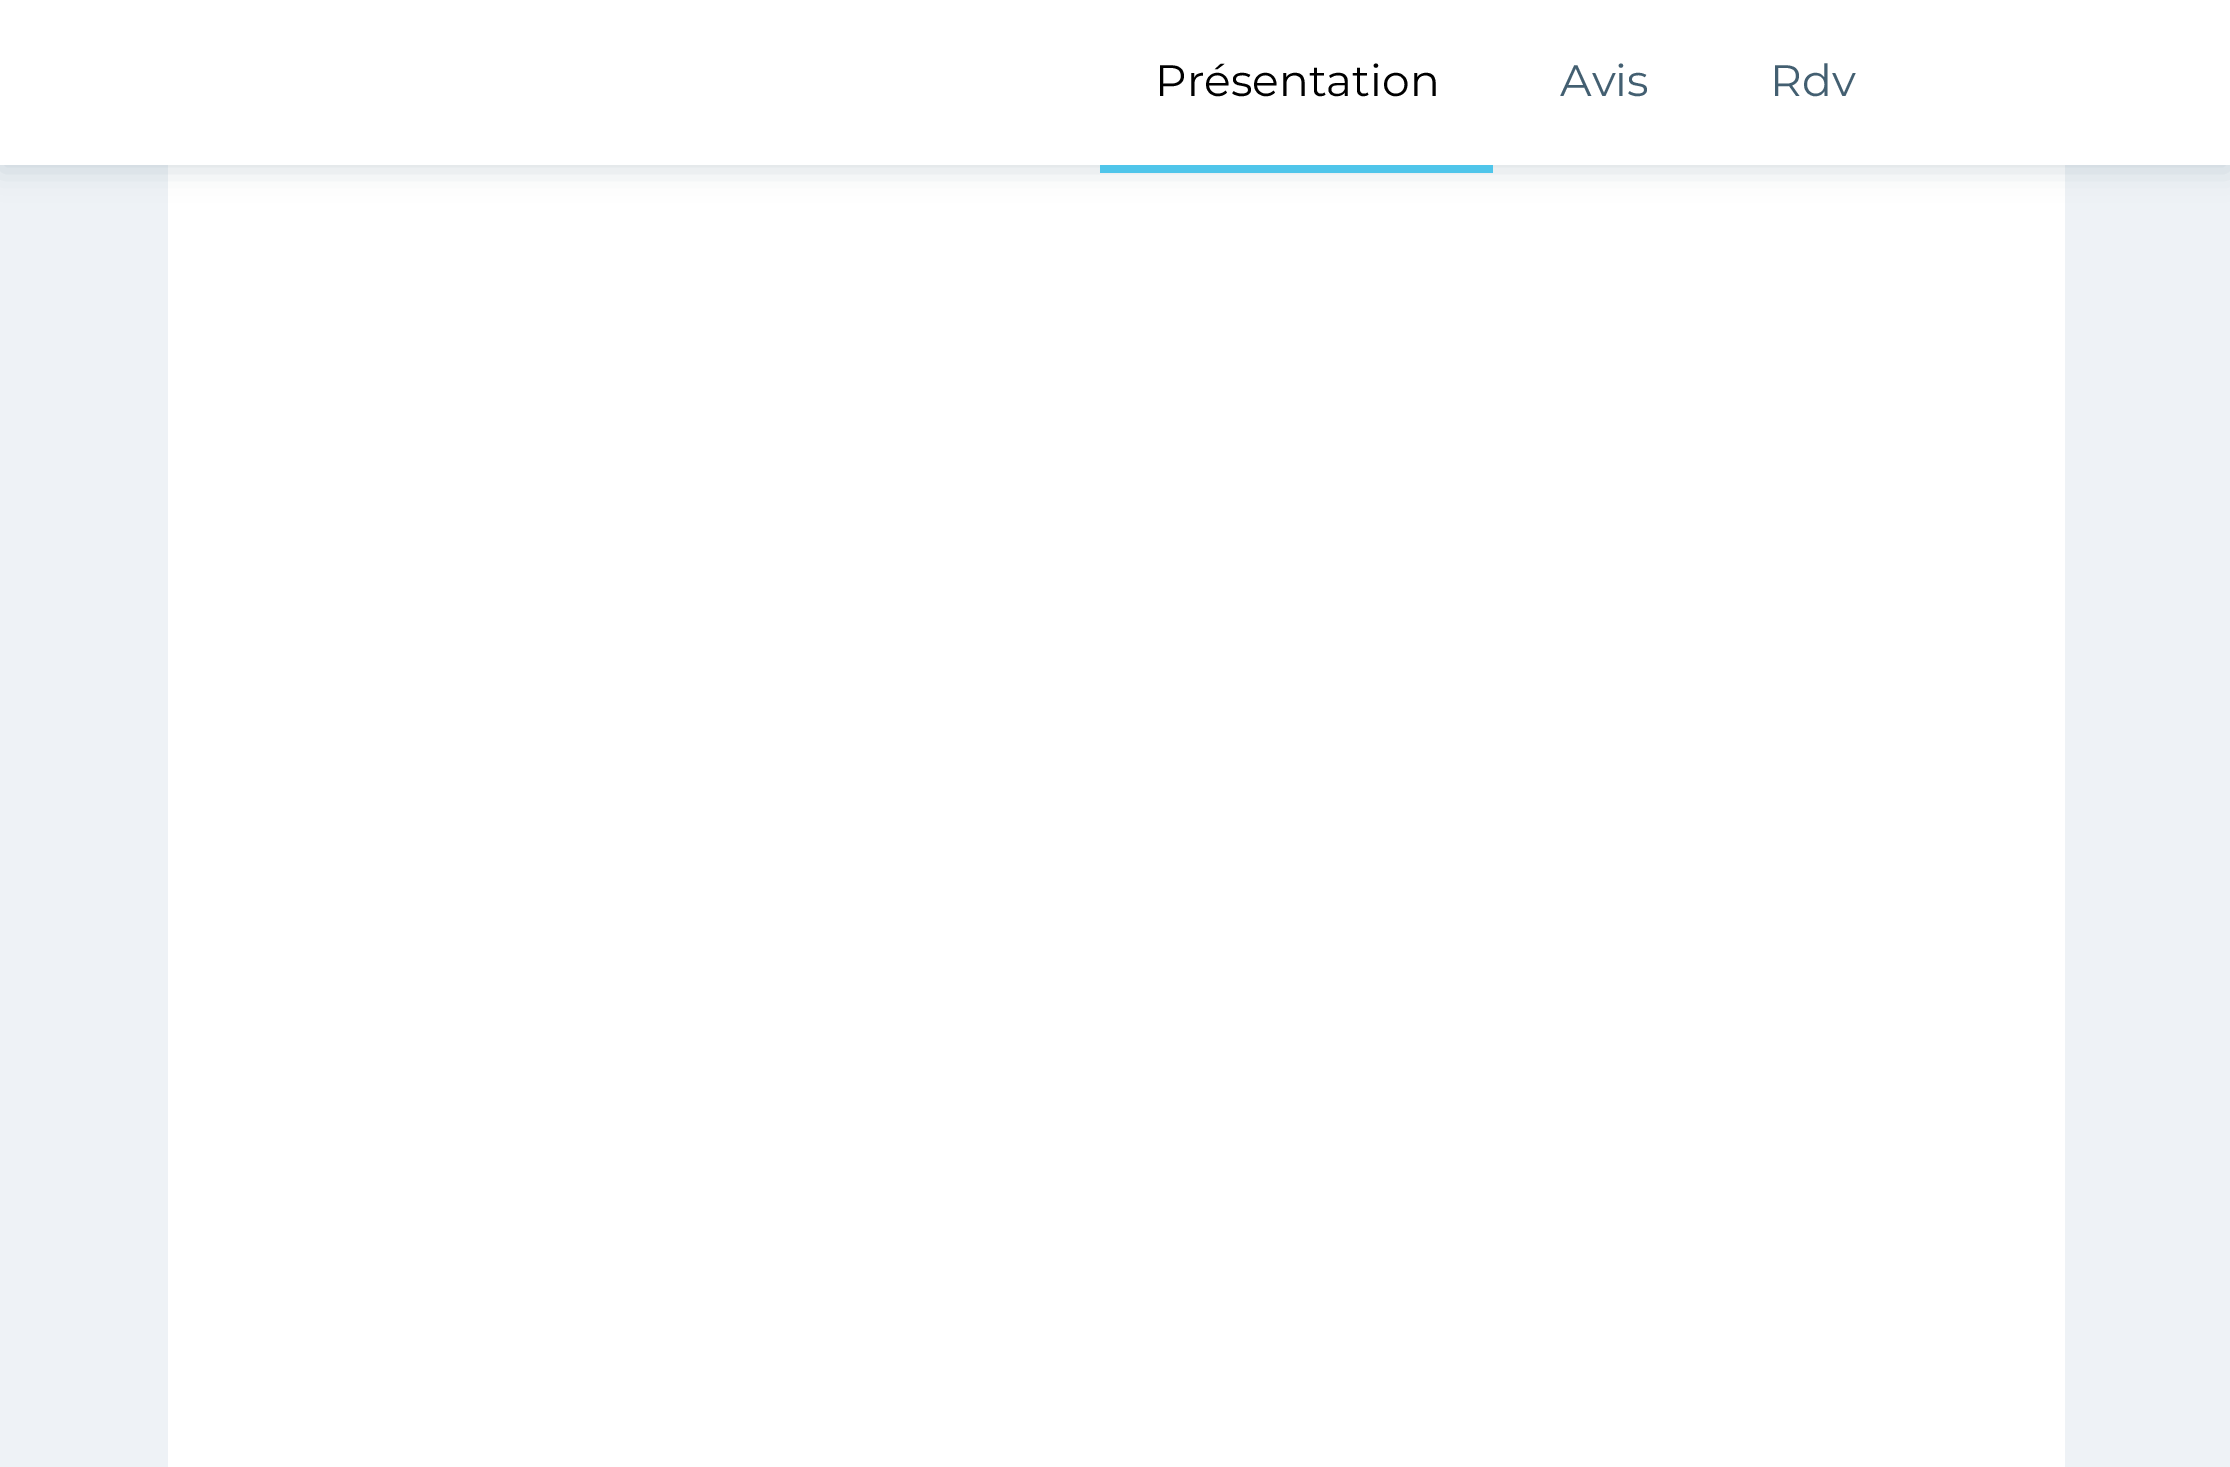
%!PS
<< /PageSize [2230 1467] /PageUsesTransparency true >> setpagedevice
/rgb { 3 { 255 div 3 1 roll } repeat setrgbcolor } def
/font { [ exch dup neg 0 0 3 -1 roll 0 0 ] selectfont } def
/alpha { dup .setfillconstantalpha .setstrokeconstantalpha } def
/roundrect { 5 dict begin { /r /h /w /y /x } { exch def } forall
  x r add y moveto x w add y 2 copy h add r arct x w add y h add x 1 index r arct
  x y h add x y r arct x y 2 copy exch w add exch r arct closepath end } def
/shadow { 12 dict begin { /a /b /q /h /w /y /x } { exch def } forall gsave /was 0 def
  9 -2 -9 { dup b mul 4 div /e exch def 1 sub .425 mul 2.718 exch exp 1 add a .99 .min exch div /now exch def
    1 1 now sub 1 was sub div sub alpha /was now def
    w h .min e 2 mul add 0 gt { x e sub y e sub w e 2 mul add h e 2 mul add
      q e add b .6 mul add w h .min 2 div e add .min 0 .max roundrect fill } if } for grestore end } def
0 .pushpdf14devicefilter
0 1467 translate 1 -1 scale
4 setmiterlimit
238 242 246 rgb
0 0 2230 1467 rectfill
255 255 255 rgb
168 165 1897 1302 rectfill
67 95 113 rgb
0 6 2230 165 0 14 0.2 shadow
255 255 255 rgb
0 0 2230 165 rectfill
79 197 234 rgb
1100 165 393 8 rectfill
/Montserrat-Regular 44 font
0 0 0 rgb
1155 96 moveto (Présentation) show
67 95 113 rgb
1560 96 moveto (Avis) show
1770 96 moveto (Rdv) show
.poppdf14devicefilter showpage
